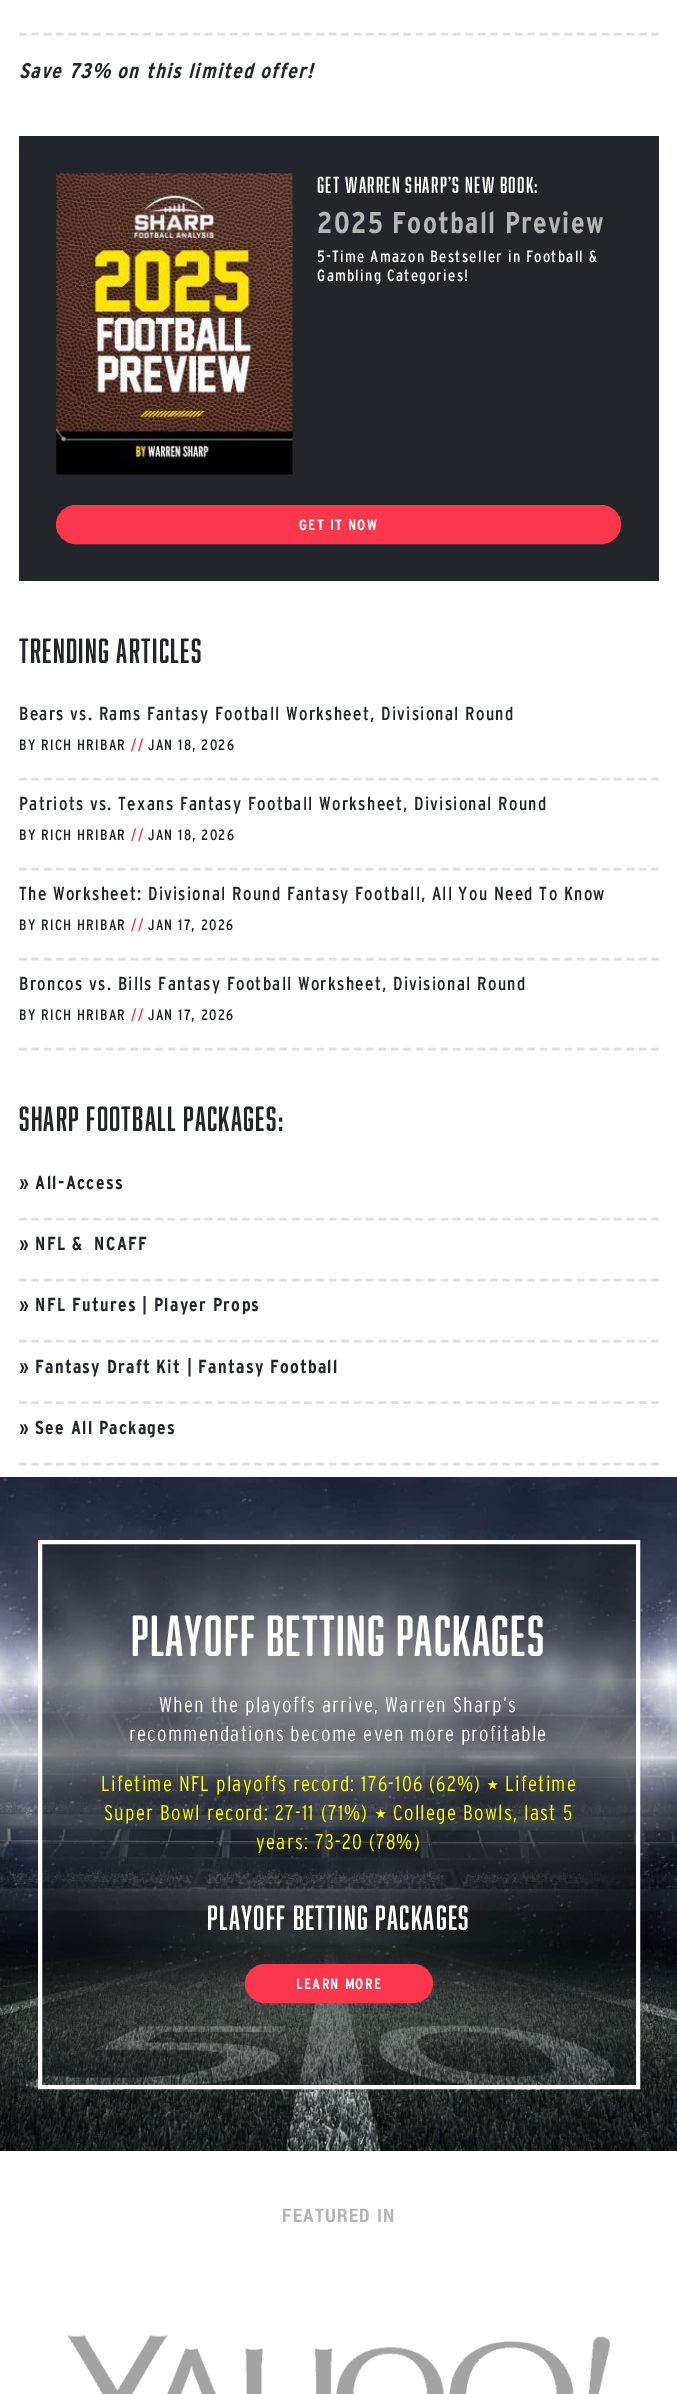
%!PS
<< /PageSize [677 2394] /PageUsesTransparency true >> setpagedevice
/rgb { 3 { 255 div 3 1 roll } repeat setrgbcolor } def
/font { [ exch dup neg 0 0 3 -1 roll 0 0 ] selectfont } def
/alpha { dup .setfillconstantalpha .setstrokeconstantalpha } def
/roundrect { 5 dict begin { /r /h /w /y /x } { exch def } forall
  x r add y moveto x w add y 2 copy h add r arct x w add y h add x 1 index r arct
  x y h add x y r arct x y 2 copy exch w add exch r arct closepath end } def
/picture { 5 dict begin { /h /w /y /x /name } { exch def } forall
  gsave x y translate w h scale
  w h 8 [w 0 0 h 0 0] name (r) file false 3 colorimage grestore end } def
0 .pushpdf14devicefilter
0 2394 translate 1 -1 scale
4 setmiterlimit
255 255 255 rgb
0 0 677 2394 rectfill
224 222 222 rgb
2.5 setlinewidth
[7.5 4.9] 0 setdash
19 34 moveto 659 34 lineto stroke
34 37 41 rgb
19 136 640 445 rectfill
(img/1.rgb) 56 173 237 302 picture
252 54 76 rgb
58 507 561 35 17.5 roundrect gsave fill grestore
4 setlinewidth
[] 0 setdash
stroke
224 222 222 rgb
2.5 setlinewidth
[7.5 4.9] 0 setdash
19 779 moveto 659 779 lineto stroke
19 869 moveto 659 869 lineto stroke
19 959 moveto 659 959 lineto stroke
19 1049 moveto 659 1049 lineto stroke
19 1219 moveto 659 1219 lineto stroke
19 1280 moveto 659 1280 lineto stroke
19 1341 moveto 659 1341 lineto stroke
19 1402.5 moveto 659 1402.5 lineto stroke
19 1464 moveto 659 1464 lineto stroke
(img/2.rgb) 0 1477 677 674 picture
0.45 alpha
20 25 25 rgb
40 1542 moveto 638 1542 lineto 638 2087 lineto 40 2087 lineto closepath fill
1 alpha
255 255 255 rgb
4 setlinewidth
[] 0 setdash
40 1542 moveto 638 1542 lineto 638 2087 lineto 40 2087 lineto closepath stroke
252 54 76 rgb
247 1966 184 35 17.5 roundrect gsave fill grestore
stroke
(img/3.rgb) 67 2335 543 59 picture
/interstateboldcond-BoldItalic 21.25 font
34 37 41 rgb
19 78 moveto 1.25 0 (Save 73% on this limited offer!) ashow
/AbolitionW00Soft-Regular 21.25 font
255 255 255 rgb
317 193 moveto 1.25 0 (Get Warren Sharp’s New Book:) ashow
/interstateboldcond-Bold 30 font
181 181 182 rgb
317 233 moveto 1.25 0 (2025 Football Preview) ashow
/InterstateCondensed-Regular 16.25 font
255 255 255 rgb
317 262 moveto 1.25 0 (5-Time Amazon Bestseller in Football &) ashow
317 281 moveto 1.25 0 (Gambling Categories!) ashow
/interstateboldcond-Bold 15 font
299 530 moveto 1.25 0 (GET IT NOW) ashow
/AbolitionW00Soft-Regular 32.25 font
34 37 41 rgb
19 663 moveto 1.25 0 (Trending Articles) ashow
/InterstateCondensed-Regular 18.75 font
19 720 moveto 1.25 0 (Bears vs. Rams Fantasy Football Worksheet, Divisional Round) ashow
/InterstateCondensed-Regular 15 font
19 750 moveto 1.25 0 (BY RICH HRIBAR) ashow
252 54 76 rgb
131 750 moveto 1.25 0 (//) ashow
34 37 41 rgb
148 750 moveto 1.25 0 (JAN 18, 2026) ashow
/InterstateCondensed-Regular 18.75 font
19 810 moveto 1.25 0 (Patriots vs. Texans Fantasy Football Worksheet, Divisional Round) ashow
/InterstateCondensed-Regular 15 font
19 840 moveto 1.25 0 (BY RICH HRIBAR) ashow
252 54 76 rgb
131 840 moveto 1.25 0 (//) ashow
34 37 41 rgb
148 840 moveto 1.25 0 (JAN 18, 2026) ashow
/InterstateCondensed-Regular 18.75 font
19 900 moveto 1.25 0 (The Worksheet: Divisional Round Fantasy Football, All You Need To Know) ashow
/InterstateCondensed-Regular 15 font
19 930 moveto 1.25 0 (BY RICH HRIBAR) ashow
252 54 76 rgb
131 930 moveto 1.25 0 (//) ashow
34 37 41 rgb
148 930 moveto 1.25 0 (JAN 17, 2026) ashow
/InterstateCondensed-Regular 18.75 font
19 990 moveto 1.25 0 (Broncos vs. Bills Fantasy Football Worksheet, Divisional Round) ashow
/InterstateCondensed-Regular 15 font
19 1020 moveto 1.25 0 (BY RICH HRIBAR) ashow
252 54 76 rgb
131 1020 moveto 1.25 0 (//) ashow
34 37 41 rgb
148 1020 moveto 1.25 0 (JAN 17, 2026) ashow
/AbolitionW00Soft-Regular 32.25 font
19 1131 moveto 1.25 0 (Sharp Football Packages:) ashow
/interstateboldcond-Bold 18.75 font
19 1189 moveto 1.25 0 (» All-Access) ashow
19 1250 moveto 1.25 0 (» NFL &  NCAFF) ashow
19 1311 moveto 1.25 0 (» NFL Futures | Player Props) ashow
19 1373 moveto 1.25 0 (» Fantasy Draft Kit | Fantasy Football) ashow
19 1434 moveto 1.25 0 (» See All Packages) ashow
/AbolitionW00Soft-Regular 53.25 font
255 255 255 rgb
131 1656 moveto 1.25 0 (Playoff Betting Packages) ashow
/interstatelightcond-Light 21.25 font
159 1712 moveto 1.25 0 (When the playoffs arrive, Warren Sharp’s) ashow
129 1741 moveto 1.25 0 (recommendations become even more profitable) ashow
255 255 0 rgb
101 1791 moveto 1.25 0 (Lifetime NFL playoffs record: 176-106 \(62%\)) ashow
/FreeSans-Regular 21.25 font
487 1791 moveto 1.25 0 (⭑) ashow
/interstatelightcond-Light 21.25 font
505 1791 moveto 1.25 0 (Lifetime) ashow
104 1820 moveto 1.25 0 (Super Bowl record: 27-11 \(71%\)) ashow
/FreeSans-Regular 21.25 font
375 1820 moveto 1.25 0 (⭑) ashow
/interstatelightcond-Light 21.25 font
393 1820 moveto 1.25 0 (College Bowls, last 5) ashow
256 1849 moveto 1.25 0 (years: 73-20 \(78%\)) ashow
/AbolitionW00Soft-Regular 32.25 font
255 255 255 rgb
207 1930 moveto 1.25 0 (Playoff Betting Packages) ashow
/interstateboldcond-Bold 15 font
296 1989 moveto 1.25 0 (LEARN MORE) ashow
/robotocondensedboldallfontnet-Bold 18.75 font
181 181 182 rgb
282 2222 moveto 1.25 0 (FEATURED IN) ashow
.poppdf14devicefilter showpage
